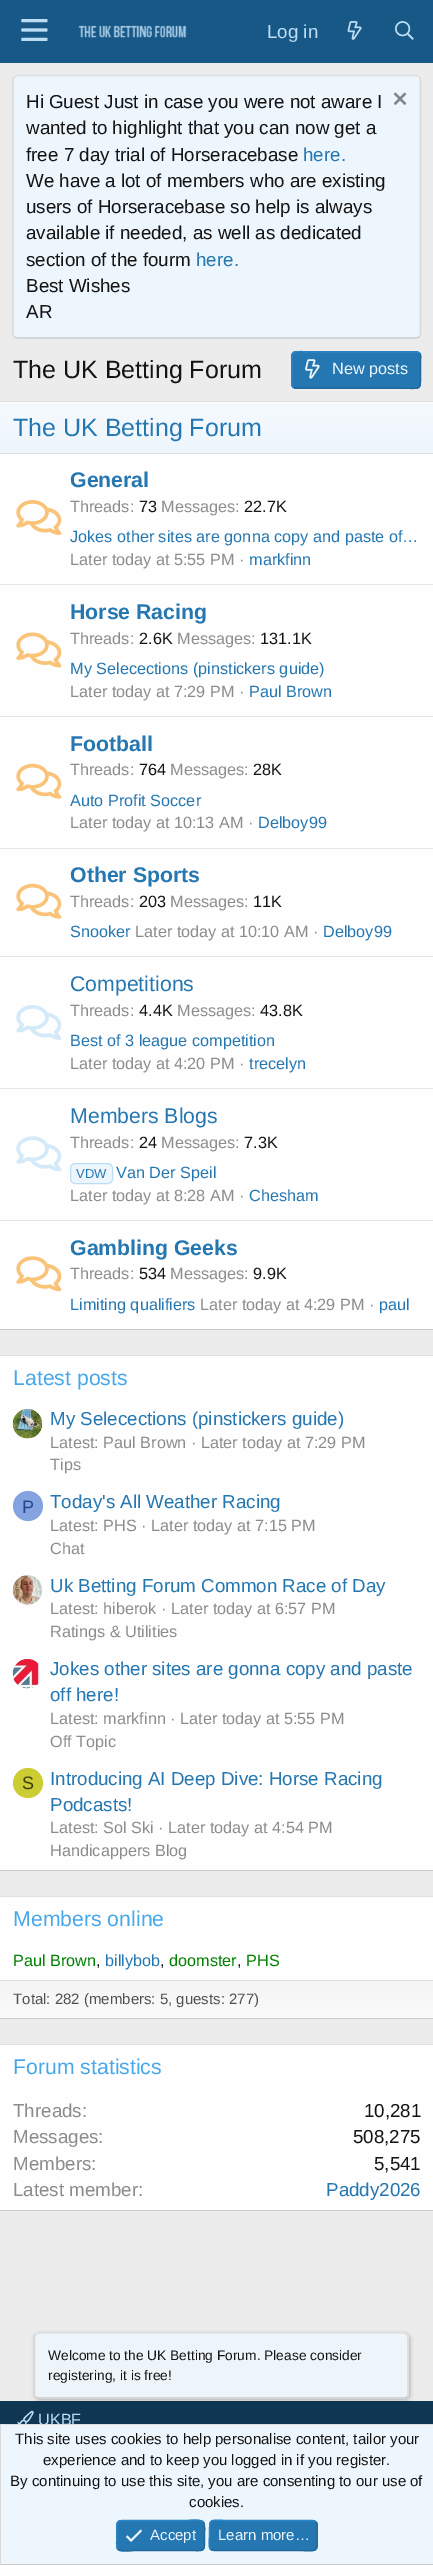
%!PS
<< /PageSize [433 2565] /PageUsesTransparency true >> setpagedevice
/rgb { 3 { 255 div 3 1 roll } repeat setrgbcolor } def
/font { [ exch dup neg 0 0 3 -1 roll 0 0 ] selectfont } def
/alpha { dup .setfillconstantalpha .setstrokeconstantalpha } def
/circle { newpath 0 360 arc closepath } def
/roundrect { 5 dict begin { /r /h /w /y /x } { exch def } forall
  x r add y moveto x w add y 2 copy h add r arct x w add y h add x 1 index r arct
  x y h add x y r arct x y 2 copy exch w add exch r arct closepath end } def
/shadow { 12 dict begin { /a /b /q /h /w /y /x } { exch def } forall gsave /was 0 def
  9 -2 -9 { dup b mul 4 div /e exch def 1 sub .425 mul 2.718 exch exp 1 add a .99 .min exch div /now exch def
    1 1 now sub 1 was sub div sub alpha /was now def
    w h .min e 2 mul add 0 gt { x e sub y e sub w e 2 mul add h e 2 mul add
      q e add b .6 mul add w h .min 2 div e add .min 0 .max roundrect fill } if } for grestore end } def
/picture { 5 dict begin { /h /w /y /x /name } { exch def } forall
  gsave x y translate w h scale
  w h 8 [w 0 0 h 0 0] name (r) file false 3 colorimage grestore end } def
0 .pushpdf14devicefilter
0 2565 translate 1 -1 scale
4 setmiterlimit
236 236 236 rgb
0 0 433 2565 rectfill
24 88 134 rgb
0 0 433 63 rectfill
(img/1.rgb) 21 19 27 22 picture
(img/2.rgb) 78 25 109 13 picture
(img/3.rgb) 347 21 15 19 picture
(img/4.rgb) 395 21 19 19 picture
237 246 253 rgb
13 75 408 264 5 roundrect fill
223 223 223 rgb
1.2 setlinewidth
14.5 77 moveto 17.5 75.5 lineto 416 75.5 lineto 419.5 77 lineto stroke
216 216 216 rgb
419.5 77 moveto 420 77.5 420.5 79 420.5 80 curveto 420.5 334 lineto 420.5 335 420 336 419.5 337 curveto stroke
203 203 203 rgb
419.5 337 moveto 416 338 lineto 17.5 338 lineto 14.5 337 lineto stroke
216 216 216 rgb
14.5 337 moveto 13.5 336 13 335 13 334 curveto 13 80 lineto 13 79 13.5 77.5 14.5 77 curveto stroke
(img/5.rgb) 393 92 14 13 picture
37 119 177 rgb
291 351 130 38 5 roundrect fill
33 105 156 rgb
419.5 353 moveto 421.5 355 420.5 358.5 420.5 361 curveto 420.5 370 lineto 420.5 393 422.5 388 396 388 curveto 296 388 lineto 293 387 lineto stroke
41 133 198 rgb
293 387 moveto 291 385 292 381.5 292 379 curveto 292 370 lineto 292 347 290 352 316 352 curveto 416 352 lineto 419.5 353 lineto stroke
(img/6.rgb) 305 359 15 20 picture
[
  [0 402 433 927 254 254 254]
  [0 401 433 1 223 223 223]
  [0 1329 433 1 203 203 203]
] { aload pop rgb rectfill } forall
gsave 0 403 moveto 433 403 lineto 433 453 lineto 0 453 lineto closepath clip newpath
<< /ShadingType 2 /ColorSpace /DeviceRGB /Coords [217 453 217 403] /Extend [true true] /Function << /FunctionType 2 /Domain [0 1] /C0 [0.929 0.965 0.992] /C1 [0.965 0.98 0.996] /N 1 >> >> shfill grestore
223 223 223 rgb
0 453 433 1 rectfill
(img/7.rgb) 16 500 46 35 picture
231 231 231 rgb
0 584 433 1 rectfill
(img/8.rgb) 16 632 46 36 picture
0 716 433 1 rectfill
(img/9.rgb) 16 763 46 36 picture
0 848 433 1 rectfill
(img/9.rgb) 16 883 46 36 picture
0 956 433 1 rectfill
(img/10.rgb) 16 1005 46 35 picture
0 1088 433 1 rectfill
(img/11.rgb) 16 1136 46 36 picture
237 246 253 rgb
70.5 1163.5 42 20 4.5 roundrect gsave fill grestore
188 222 245 rgb
1 setlinewidth
stroke
231 231 231 rgb
0 1220 433 1 rectfill
(img/12.rgb) 16 1256 46 36 picture
[
  [0 1356 433 514 254 254 254]
  [0 1355 433 1 223 223 223]
  [0 1870 433 1 203 203 203]
] { aload pop rgb rectfill } forall
(img/13.rgb) 12 1409 31 30 picture
133 163 224 rgb
28 1506 15 circle fill
(img/14.rgb) 12 1575 31 30 picture
(img/15.rgb) 12 1659 29 30 picture
204 204 51 rgb
28 1783 15 circle fill
[
  [0 1897 433 83 254 254 254]
  [0 1896 433 1 223 223 223]
  [0 2018 433 1 203 203 203]
] { aload pop rgb rectfill } forall
gsave 0 1981 moveto 433 1981 lineto 433 2018 lineto 0 2018 lineto closepath clip newpath
<< /ShadingType 2 /ColorSpace /DeviceRGB /Coords [217 1981 217 2018] /Extend [true true] /Function << /FunctionType 2 /Domain [0 1] /C0 [0.961 0.961 0.961] /C1 [0.98 0.98 0.98] /N 1 >> >> shfill grestore
[
  [0 1980 433 1 223 223 223]
  [0 2045 433 165 254 254 254]
  [0 2044 433 1 223 223 223]
  [0 2210 433 1 203 203 203]
  [0 2401 433 23 15 54 82]
] { aload pop rgb rectfill } forall
(img/16.rgb) 17 2410 17 14 picture
gsave
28 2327 moveto 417 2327 lineto 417 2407 lineto 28 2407 lineto closepath 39 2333 moveto 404 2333 lineto 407 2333 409 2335 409 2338 curveto 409 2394 lineto 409 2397 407 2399 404 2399 curveto 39 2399 lineto 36 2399 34 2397 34 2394 curveto 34 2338 lineto 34 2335 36 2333 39 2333 curveto closepath eoclip newpath
0 0 0 rgb
35 2334 375 66 5 2 0.25 shadow
grestore
0.8 alpha
237 246 253 rgb
34 2333 375 66 5 roundrect fill
1 alpha
223 223 223 rgb
1.2 setlinewidth
35.5 2334.5 moveto 39 2333 lineto 404 2333 lineto 407 2334.5 lineto stroke
216 216 216 rgb
407 2334.5 moveto 407.5 2335 408 2336.5 408 2337.5 curveto 408 2394 lineto 408 2395 407.5 2396 407 2397 curveto stroke
203 203 203 rgb
407 2397 moveto 404 2398 lineto 39 2398 lineto 35.5 2397 lineto stroke
216 216 216 rgb
35.5 2397 moveto 35 2396 34.5 2395 34.5 2394 curveto 34.5 2337.5 lineto 34.5 2336.5 35 2335 35.5 2334.5 curveto stroke
203 203 203 rgb
0 2564 433 1 rectfill
/LiberationSans-Regular 18.75 font
188 222 245 rgb
267 38 moveto (Log in) show
20 20 20 rgb
[
  [(Hi Guest Just in case you were not aware I) 26 108]
  [(wanted to highlight that you can now get a) 26 134]
  [(free 7 day trial of Horseracebase) 26 161]
] { aload pop moveto show } forall
37 119 177 rgb
303 161 moveto (here.) show
20 20 20 rgb
[
  [(We have a lot of members who are existing) 26 187]
  [(users of Horseracebase so help is always) 26 213]
  [(available if needed, as well as dedicated) 26 239]
  [(section of the fourm) 26 266]
] { aload pop moveto show } forall
37 119 177 rgb
196 266 moveto (here.) show
20 20 20 rgb
26 292 moveto (Best Wishes) show
26 318 moveto (AR) show
/LiberationSans-Regular 25 font
13 378 moveto (The UK Betting Forum) show
/LiberationSans-Regular 16.25 font
237 246 253 rgb
332 374 moveto (New posts) show
/LiberationSans-Regular 25 font
37 119 177 rgb
13 436 moveto (The UK Betting Forum) show
/LiberationSans-Bold 21.25 font
70 487 moveto (General) show
/LiberationSans-Regular 16.25 font
140 140 140 rgb
70 512 moveto (Threads:) show
20 20 20 rgb
139 512 moveto (73) show
140 140 140 rgb
161 512 moveto (Messages:) show
20 20 20 rgb
244 512 moveto (22.7K) show
37 119 177 rgb
70 542 moveto (Jokes other sites are gonna copy and paste of…) show
140 140 140 rgb
70 565 moveto (Later today at 5:55 PM ·) show
37 119 177 rgb
249 565 moveto (markfinn) show
/LiberationSans-Bold 21.25 font
70 619 moveto (Horse Racing) show
/LiberationSans-Regular 16.25 font
140 140 140 rgb
70 644 moveto (Threads:) show
20 20 20 rgb
139 644 moveto (2.6K) show
140 140 140 rgb
177 644 moveto (Messages:) show
20 20 20 rgb
260 644 moveto (131.1K) show
37 119 177 rgb
70 674 moveto (My Selecections \(pinstickers guide\)) show
140 140 140 rgb
70 697 moveto (Later today at 7:29 PM ·) show
37 119 177 rgb
249 697 moveto (Paul Brown) show
/LiberationSans-Bold 21.25 font
70 751 moveto (Football) show
/LiberationSans-Regular 16.25 font
140 140 140 rgb
70 775 moveto (Threads:) show
20 20 20 rgb
139 775 moveto (764) show
140 140 140 rgb
170 775 moveto (Messages:) show
20 20 20 rgb
253 775 moveto (28K) show
37 119 177 rgb
70 806 moveto (Auto Profit Soccer) show
140 140 140 rgb
70 828 moveto (Later today at 10:13 AM ·) show
37 119 177 rgb
258 828 moveto (Delboy99) show
/LiberationSans-Bold 21.25 font
70 882 moveto (Other Sports) show
/LiberationSans-Regular 16.25 font
140 140 140 rgb
70 907 moveto (Threads:) show
20 20 20 rgb
139 907 moveto (203) show
140 140 140 rgb
170 907 moveto (Messages:) show
20 20 20 rgb
253 907 moveto (11K) show
37 119 177 rgb
70 937 moveto (Snooker) show
140 140 140 rgb
135 937 moveto (Later today at 10:10 AM ·) show
37 119 177 rgb
323 937 moveto (Delboy99) show
/LiberationSans-Regular 21.25 font
70 991 moveto (Competitions) show
/LiberationSans-Regular 16.25 font
140 140 140 rgb
70 1016 moveto (Threads:) show
20 20 20 rgb
139 1016 moveto (4.4K) show
140 140 140 rgb
177 1016 moveto (Messages:) show
20 20 20 rgb
260 1016 moveto (43.8K) show
37 119 177 rgb
70 1046 moveto (Best of 3 league competition) show
140 140 140 rgb
70 1069 moveto (Later today at 4:20 PM ·) show
37 119 177 rgb
249 1069 moveto (trecelyn) show
/LiberationSans-Regular 21.25 font
70 1123 moveto (Members Blogs) show
/LiberationSans-Regular 16.25 font
140 140 140 rgb
70 1148 moveto (Threads:) show
20 20 20 rgb
139 1148 moveto (24) show
140 140 140 rgb
161 1148 moveto (Messages:) show
20 20 20 rgb
244 1148 moveto (7.3K) show
/LiberationSans-Regular 13 font
37 119 177 rgb
76 1178 moveto (VDW) show
/LiberationSans-Regular 16.25 font
116 1178 moveto (Van Der Speil) show
140 140 140 rgb
70 1201 moveto (Later today at 8:28 AM ·) show
37 119 177 rgb
249 1201 moveto (Chesham) show
/LiberationSans-Bold 21.25 font
70 1255 moveto (Gambling Geeks) show
/LiberationSans-Regular 16.25 font
140 140 140 rgb
70 1279 moveto (Threads:) show
20 20 20 rgb
139 1279 moveto (534) show
140 140 140 rgb
170 1279 moveto (Messages:) show
20 20 20 rgb
253 1279 moveto (9.9K) show
37 119 177 rgb
70 1310 moveto (Limiting qualifiers) show
140 140 140 rgb
200 1310 moveto (Later today at 4:29 PM ·) show
37 119 177 rgb
379 1310 moveto (paul) show
/LiberationSans-Regular 21.25 font
71 167 235 rgb
13 1385 moveto (Latest posts) show
/LiberationSans-Regular 18.75 font
37 119 177 rgb
50 1425 moveto (My Selecections \(pinstickers guide\)) show
/LiberationSans-Regular 16.25 font
140 140 140 rgb
50 1448 moveto (Latest: Paul Brown · Later today at 7:29 PM) show
50 1470 moveto (Tips) show
/LiberationSans-Regular 18 font
36 71 143 rgb
22 1513 moveto (P) show
/LiberationSans-Regular 18.75 font
37 119 177 rgb
50 1508 moveto (Today's All Weather Racing) show
/LiberationSans-Regular 16.25 font
140 140 140 rgb
50 1531 moveto (Latest: PHS · Later today at 7:15 PM) show
50 1554 moveto (Chat) show
/LiberationSans-Regular 18.75 font
37 119 177 rgb
50 1592 moveto (Uk Betting Forum Common Race of Day) show
/LiberationSans-Regular 16.25 font
140 140 140 rgb
50 1614 moveto (Latest: hiberok · Later today at 6:57 PM) show
50 1637 moveto (Ratings & Utilities) show
/LiberationSans-Regular 18.75 font
37 119 177 rgb
50 1675 moveto (Jokes other sites are gonna copy and paste) show
50 1701 moveto (off here!) show
/LiberationSans-Regular 16.25 font
140 140 140 rgb
50 1724 moveto (Latest: markfinn · Later today at 5:55 PM) show
50 1747 moveto (Off Topic) show
/LiberationSans-Regular 18 font
61 61 15 rgb
22 1789 moveto (S) show
/LiberationSans-Regular 18.75 font
37 119 177 rgb
50 1785 moveto (Introducing AI Deep Dive: Horse Racing) show
50 1811 moveto (Podcasts!) show
/LiberationSans-Regular 16.25 font
140 140 140 rgb
50 1833 moveto (Latest: Sol Ski · Later today at 4:54 PM) show
50 1856 moveto (Handicappers Blog) show
/LiberationSans-Regular 21.25 font
71 167 235 rgb
13 1926 moveto (Members online) show
/LiberationSans-Regular 16.25 font
0 128 0 rgb
13 1966 moveto (Paul Brown) show
20 20 20 rgb
96 1966 moveto (,) show
37 119 177 rgb
105 1966 moveto (billybob) show
20 20 20 rgb
160 1966 moveto (,) show
0 128 0 rgb
169 1966 moveto (doomster) show
20 20 20 rgb
237 1966 moveto (,) show
0 128 0 rgb
246 1966 moveto (PHS) show
/LiberationSans-Regular 15 font
80 80 80 rgb
13 2004 moveto (Total: 282 \(members: 5, guests: 277\)) show
/LiberationSans-Regular 21.25 font
71 167 235 rgb
13 2074 moveto (Forum statistics) show
/LiberationSans-Regular 18.75 font
140 140 140 rgb
13 2117 moveto (Threads:) show
20 20 20 rgb
364 2117 moveto (10,281) show
140 140 140 rgb
13 2143 moveto (Messages:) show
20 20 20 rgb
353 2143 moveto (508,275) show
140 140 140 rgb
13 2170 moveto (Members:) show
20 20 20 rgb
374 2170 moveto (5,541) show
140 140 140 rgb
13 2196 moveto (Latest member:) show
37 119 177 rgb
326 2196 moveto (Paddy2026) show
/LiberationSans-Regular 16.25 font
188 222 245 rgb
38 2425 moveto (UKBF) show
/LiberationSans-Regular 13.75 font
20 20 20 rgb
48 2360 moveto (Welcome to the UK Betting Forum. Please consider) show
48 2380 moveto (registering, it is free!) show
[
  [1 2425 432 139 237 246 253]
  [0 2424 433 1 223 223 223]
  [0 2424 1 141 216 216 216]
] { aload pop rgb rectfill } forall
/LiberationSans-Regular 15 font
20 20 20 rgb
[
  [(This site uses cookies to help personalise content, tailor your) 15 2444]
  [(experience and to keep you logged in if you register.) 43 2465]
  [(By continuing to use this site, you are consenting to our use of) 10 2486]
  [(cookies.) 189 2507]
] { aload pop moveto show } forall
37 119 177 rgb
116 2520 89 31 5 roundrect fill
33 105 156 rgb
203 2522 moveto 205.5 2524.5 204.5 2532.5 204.5 2535.5 curveto 204.5 2553.5 206 2550.5 187 2550.5 curveto 134.5 2550.5 lineto 133 2550.5 121.5 2552.5 118 2549.5 curveto stroke
41 133 198 rgb
118 2549.5 moveto 115.5 2546.5 117 2539 117 2535.5 curveto 117 2518 115.5 2520.5 134.5 2520.5 curveto 187 2520.5 lineto 188 2520.5 200 2518.5 203 2522 curveto stroke
(img/17.rgb) 126 2529 16 13 picture
237 246 253 rgb
150 2540 moveto (Accept) show
37 119 177 rgb
209 2520 109 31 5 roundrect fill
33 105 156 rgb
315.5 2522 moveto 318 2524.5 317 2532.5 317 2535.5 curveto 317 2554.5 317.5 2550.5 296 2550.5 curveto 214 2550.5 lineto 210.5 2549.5 lineto stroke
41 133 198 rgb
210.5 2549.5 moveto 208 2546.5 209.5 2539 209.5 2535.5 curveto 209.5 2516.5 208.5 2520.5 230 2520.5 curveto 312.5 2520.5 lineto 315.5 2522 lineto stroke
237 246 253 rgb
218 2540 moveto (Learn more…) show
.poppdf14devicefilter showpage
